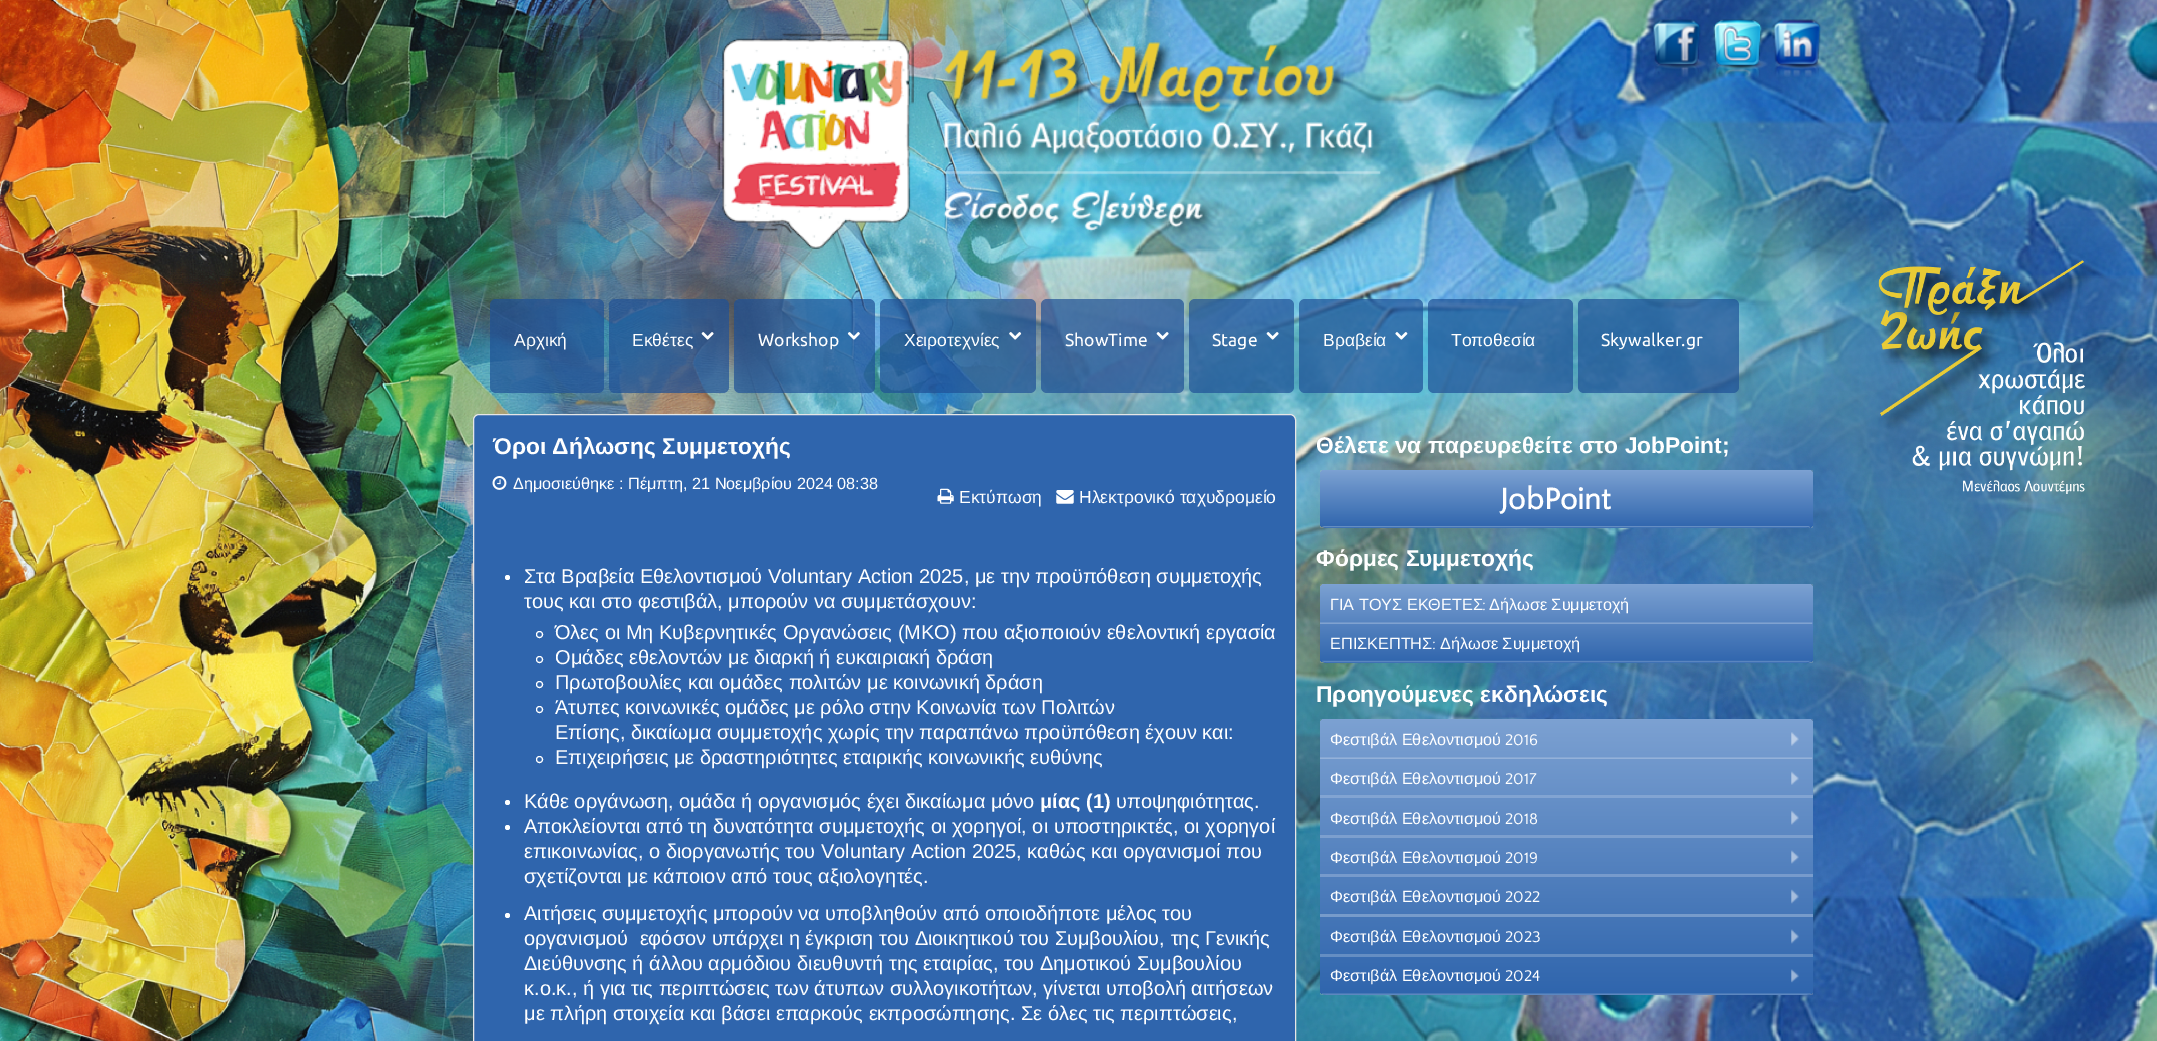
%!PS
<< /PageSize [2157 1041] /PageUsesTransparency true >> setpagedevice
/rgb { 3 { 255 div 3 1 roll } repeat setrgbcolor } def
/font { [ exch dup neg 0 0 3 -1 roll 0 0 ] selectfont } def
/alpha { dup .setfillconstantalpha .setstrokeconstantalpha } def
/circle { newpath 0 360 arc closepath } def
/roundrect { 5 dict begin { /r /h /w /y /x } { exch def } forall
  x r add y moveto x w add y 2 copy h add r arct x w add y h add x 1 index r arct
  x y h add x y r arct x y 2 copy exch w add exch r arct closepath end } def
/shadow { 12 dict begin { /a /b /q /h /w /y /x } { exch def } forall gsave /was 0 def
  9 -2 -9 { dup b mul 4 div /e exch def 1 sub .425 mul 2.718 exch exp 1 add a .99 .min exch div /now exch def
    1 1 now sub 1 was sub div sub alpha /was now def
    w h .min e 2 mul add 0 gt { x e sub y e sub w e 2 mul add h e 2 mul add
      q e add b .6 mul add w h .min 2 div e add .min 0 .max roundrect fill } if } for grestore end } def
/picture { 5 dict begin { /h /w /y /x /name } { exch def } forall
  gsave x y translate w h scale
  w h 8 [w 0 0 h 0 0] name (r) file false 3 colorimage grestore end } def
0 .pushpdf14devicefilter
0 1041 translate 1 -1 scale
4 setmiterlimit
255 255 255 rgb
0 0 2157 1041 rectfill
(img/1.rgb) 0 0 2157 1041 picture
(img/2.rgb) 717 27 671 222 picture
(img/3.rgb) 1652 19 55 58 picture
(img/4.rgb) 1713 19 55 59 picture
(img/5.rgb) 1772 19 55 58 picture
0.7 alpha
30 80 150 rgb
490 299 114 94 6 roundrect fill
609 299 120 94 6 roundrect fill
1 alpha
(img/6.rgb) 701 332 13 8 picture
0.7 alpha
734 299 141 94 6 roundrect fill
1 alpha
(img/7.rgb) 847 332 13 8 picture
0.7 alpha
880 299 156 94 6 roundrect fill
1 alpha
(img/8.rgb) 1009 332 13 8 picture
0.7 alpha
1041 299 143 94 6 roundrect fill
1 alpha
(img/9.rgb) 1156 332 13 8 picture
0.7 alpha
1189 299 105 94 6 roundrect fill
1 alpha
(img/10.rgb) 1266 332 13 8 picture
0.7 alpha
1299 299 124 94 6 roundrect fill
1 alpha
(img/11.rgb) 1395 332 13 8 picture
0.7 alpha
1428 299 145 94 6 roundrect fill
1578 299 161 94 6 roundrect fill
1 alpha
47 101 173 rgb
473.5 414.5 822 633 5.5 roundrect gsave fill grestore
230 230 230 rgb
stroke
(img/12.rgb) 492 476 15 14 picture
(img/13.rgb) 937 488 17 16 picture
(img/14.rgb) 1056 490 18 14 picture
255 255 255 rgb
507.5 577.5 2.5 circle fill
539.5 634.5 3 circle stroke
539.5 659.5 3 circle stroke
539.5 684.5 3 circle stroke
539.5 709.5 3 circle stroke
539.5 759.5 3 circle stroke
507.5 802.5 2.5 circle fill
507.5 827.5 2.5 circle fill
507.5 915.5 2.5 circle fill
gsave
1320 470 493 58 rectclip
187 187 187 rgb
1320 470 493 58 6 3 1 shadow
grestore
gsave 1320 470 493 58 6 roundrect clip newpath
<< /ShadingType 2 /ColorSpace /DeviceRGB /Coords [1320 528 1320 470] /Extend [true true] /Function << /FunctionType 2 /Domain [0 1] /C0 [0.184 0.396 0.678] /C1 [0.486 0.631 0.824] /N 1 >> >> shfill grestore
(img/15.rgb) 1322 526 488 2 picture
gsave
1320 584 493 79 rectclip
187 187 187 rgb
1320 584 493 79 6 3 1 shadow
grestore
gsave 1320 584 493 79 6 roundrect clip newpath
<< /ShadingType 2 /ColorSpace /DeviceRGB /Coords [1320 663 1320 584] /Extend [true true] /Function << /FunctionType 2 /Domain [0 1] /C0 [0.184 0.396 0.678] /C1 [0.486 0.631 0.824] /N 1 >> >> shfill grestore
(img/16.rgb) 1320 622 493 2 picture
(img/17.rgb) 1322 660 489 3 picture
gsave
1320 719 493 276 rectclip
187 187 187 rgb
1320 719 493 276 6 3 1 shadow
grestore
gsave 1320 719 493 276 6 roundrect clip newpath
<< /ShadingType 2 /ColorSpace /DeviceRGB /Coords [1320 995 1320 719] /Extend [true true] /Function << /FunctionType 2 /Domain [0 1] /C0 [0.184 0.396 0.678] /C1 [0.486 0.631 0.824] /N 1 >> >> shfill grestore
(img/18.rgb) 1320 757 493 2 picture
(img/19.rgb) 1791 732 8 14 picture
130 164 210 rgb
1320 795 493 3 rectfill
(img/20.rgb) 1791 771 8 14 picture
124 159 206 rgb
1320 835 493 3 rectfill
(img/21.rgb) 1791 810 8 15 picture
119 155 204 rgb
1320 874 493 3 rectfill
(img/22.rgb) 1791 850 8 14 picture
119 155 203 rgb
1320 914 493 3 rectfill
(img/23.rgb) 1791 889 8 15 picture
101 142 195 rgb
1320 954 493 3 rectfill
(img/24.rgb) 1791 929 8 15 picture
(img/25.rgb) 1322 993 489 2 picture
(img/26.rgb) 1791 969 8 14 picture
/LiberationSans-Regular 17.5 font
255 255 255 rgb
514 346 moveto (Αρχική) show
632 346 moveto (Εκθέτες) show
/Ubuntu-Regular 17.5 font
758 346 moveto (Workshop) show
/LiberationSans-Regular 17.5 font
904 346 moveto (Χειροτεχνίες) show
/Ubuntu-Regular 17.5 font
1065 346 moveto (ShowTime) show
1212 346 moveto (Stage) show
/LiberationSans-Regular 17.5 font
1323 346 moveto (Βραβεία) show
1451 346 moveto (Τοποθεσία) show
/Ubuntu-Regular 17.5 font
1601 346 moveto (Skywalker.gr) show
/LiberationSans-Bold 22.75 font
493 454 moveto (Όροι Δήλωσης Συμμετοχής) show
/LiberationSans-Regular 16.25 font
513 489 moveto (Δημοσιεύθηκε : Πέμπτη, 21 Νοεμβρίου 2024 08:38) show
/LiberationSans-Regular 17.5 font
959 503 moveto (Εκτύπωση) show
1079 503 moveto (Ηλεκτρονικό ταχυδρομείο) show
/LiberationSans-Regular 20 font
[
  [(Στα Βραβεία Εθελοντισμού Voluntary Action 2025, με την προϋπόθεση συμμετοχής) 524 583]
  [(τους και στο φεστιβάλ, μπορούν να συμμετάσχουν:) 524 608]
  [(Όλες οι Μη Κυβερνητικές Οργανώσεις \(ΜΚΟ\) που αξιοποιούν εθελοντική εργασία) 555 639]
  [(Ομάδες εθελοντών με διαρκή ή ευκαιριακή δράση) 555 664]
  [(Πρωτοβουλίες και ομάδες πολιτών με κοινωνική δράση) 555 689]
  [(Άτυπες κοινωνικές ομάδες με ρόλο στην Κοινωνία των Πολιτών) 555 714]
  [(Επίσης, δικαίωμα συμμετοχής χωρίς την παραπάνω προϋπόθεση έχουν και:) 555 739]
  [(Επιχειρήσεις με δραστηριότητες εταιρικής κοινωνικής ευθύνης) 555 764]
  [(Κάθε οργάνωση, ομάδα ή οργανισμός έχει δικαίωμα μόνο) 524 808]
] { aload pop moveto show } forall
/LiberationSans-Bold 20 font
1040 808 moveto (μίας \(1\)) show
/LiberationSans-Regular 20 font
[
  [(υποψηφιότητας.) 1116 808]
  [(Αποκλείονται από τη δυνατότητα συμμετοχής οι χορηγοί, οι υποστηρικτές, οι χορηγοί) 524 833]
  [(επικοινωνίας, ο διοργανωτής του Voluntary Action 2025, καθώς και οργανισμοί που) 524 858]
  [(σχετίζονται με κάποιον από τους αξιολογητές.) 524 883]
  [(Αιτήσεις συμμετοχής μπορούν να υποβληθούν από οποιοδήποτε μέλος του) 524 920]
  [(οργανισμού  εφόσον υπάρχει η έγκριση του Διοικητικού του Συμβουλίου, της Γενικής) 524 945]
  [(Διεύθυνσης ή άλλου αρμόδιου διευθυντή της εταιρίας, του Δημοτικού Συμβουλίου) 524 970]
  [(κ.ο.κ., ή για τις περιπτώσεις των άτυπων συλλογικοτήτων, γίνεται υποβολή αιτήσεων) 524 995]
  [(με πλήρη στοιχεία και βάσει επαρκούς εκπροσώπησης. Σε όλες τις περιπτώσεις,) 524 1020]
] { aload pop moveto show } forall
/LiberationSans-Bold 22.75 font
1316 453 moveto (Θέλετε να παρευρεθείτε στο JobPoint;) show
/QuattrocentoSans-Bold 31 font
1500 509 moveto (JobPoint) show
/LiberationSans-Bold 22.75 font
1316 566 moveto (Φόρμες Συμμετοχής) show
/LiberationSans-Regular 16.25 font
1330 610 moveto (ΓΙΑ ΤΟΥΣ ΕΚΘΕΤΕΣ) show
/QuattrocentoSans-Regular 16.25 font
1482 610 moveto (:) show
/LiberationSans-Regular 16.25 font
1489 610 moveto (Δήλωσε Συμμετοχή) show
1330 649 moveto (ΕΠΙΣΚΕΠΤΗΣ) show
/QuattrocentoSans-Regular 16.25 font
1432 649 moveto (:) show
/LiberationSans-Regular 16.25 font
1440 649 moveto (Δήλωσε Συμμετοχή) show
/LiberationSans-Bold 22.75 font
1316 702 moveto (Προηγούμενες εκδηλώσεις) show
/LiberationSans-Regular 16.25 font
1330 745 moveto (Φεστιβάλ Εθελοντισμού) show
/QuattrocentoSans-Regular 16.25 font
1505 745 moveto (2016) show
/LiberationSans-Regular 16.25 font
1330 784 moveto (Φεστιβάλ Εθελοντισμού) show
/QuattrocentoSans-Regular 16.25 font
1505 784 moveto (2017) show
/LiberationSans-Regular 16.25 font
1330 824 moveto (Φεστιβάλ Εθελοντισμού) show
/QuattrocentoSans-Regular 16.25 font
1505 824 moveto (2018) show
/LiberationSans-Regular 16.25 font
1330 863 moveto (Φεστιβάλ Εθελοντισμού) show
/QuattrocentoSans-Regular 16.25 font
1505 863 moveto (2019) show
/LiberationSans-Regular 16.25 font
1330 902 moveto (Φεστιβάλ Εθελοντισμού) show
/QuattrocentoSans-Regular 16.25 font
1505 902 moveto (2022) show
/LiberationSans-Regular 16.25 font
1330 942 moveto (Φεστιβάλ Εθελοντισμού) show
/QuattrocentoSans-Regular 16.25 font
1505 942 moveto (2023) show
/LiberationSans-Regular 16.25 font
1330 981 moveto (Φεστιβάλ Εθελοντισμού) show
/QuattrocentoSans-Regular 16.25 font
1505 981 moveto (2024) show
.poppdf14devicefilter showpage
